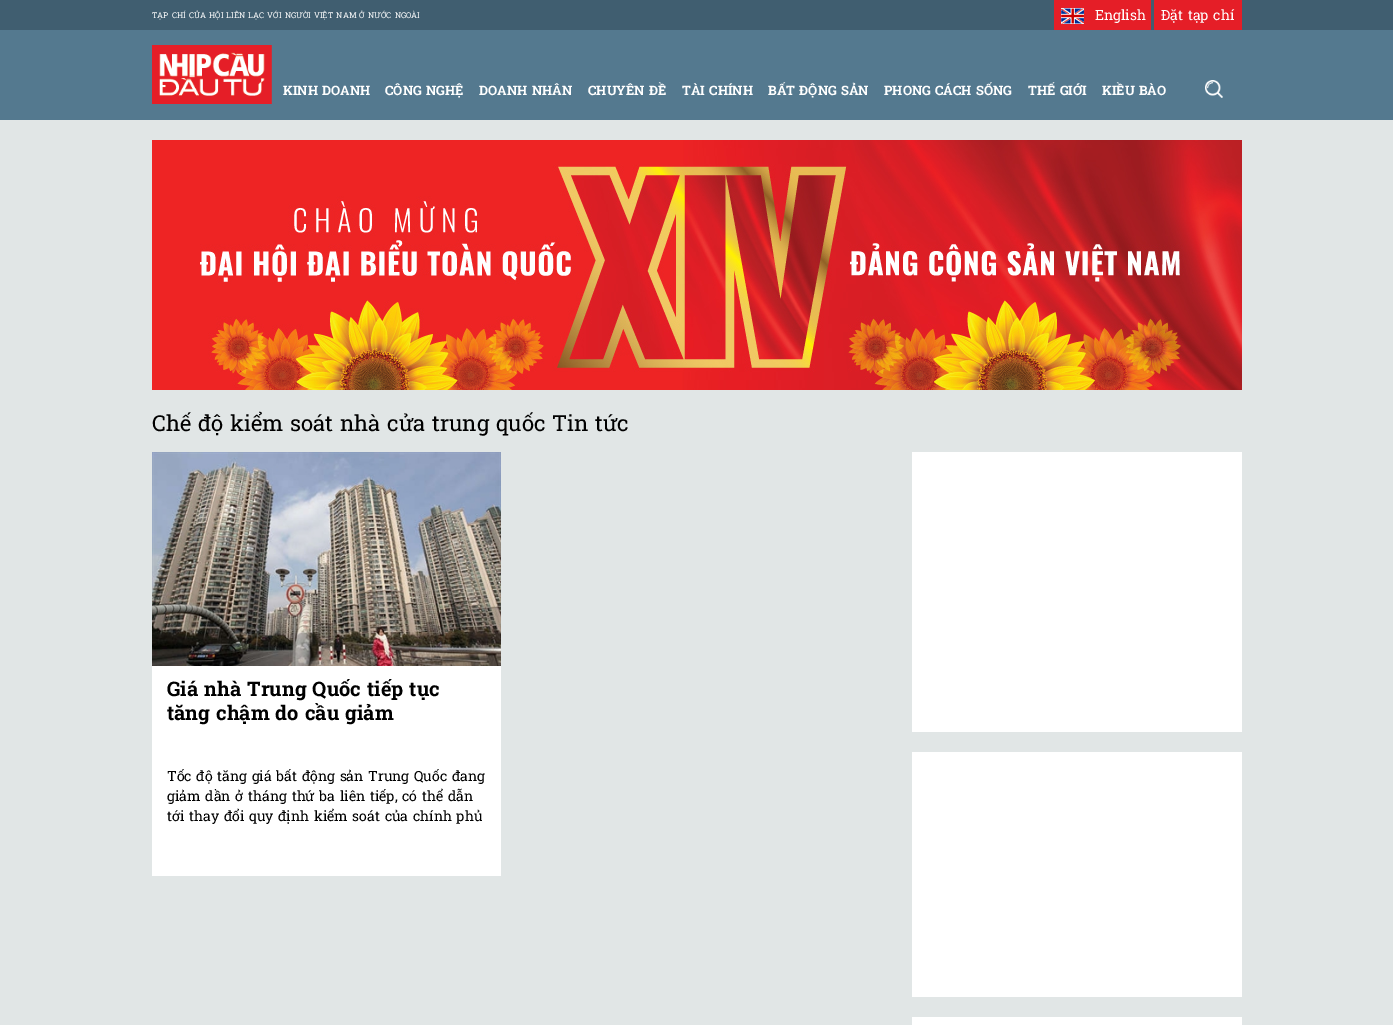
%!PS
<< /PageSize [1393 1025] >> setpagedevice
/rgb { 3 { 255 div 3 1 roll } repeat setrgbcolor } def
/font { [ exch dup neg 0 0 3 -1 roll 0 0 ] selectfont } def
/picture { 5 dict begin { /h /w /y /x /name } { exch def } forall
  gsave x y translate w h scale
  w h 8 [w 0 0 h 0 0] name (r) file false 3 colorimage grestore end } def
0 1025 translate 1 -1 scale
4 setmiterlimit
225 230 230 rgb
0 0 1393 1025 rectfill
64 94 112 rgb
0 0 1393 30 rectfill
229 30 39 rgb
1054 0 97 30 rectfill
(img/1.rgb) 1061 8 23 16 picture
1154 0 88 30 rectfill
84 121 143 rgb
0 30 1393 90 rectfill
(img/2.rgb) 152 45 120 59 picture
(img/3.rgb) 1205 80 18 18 picture
(img/4.rgb) 152 140 1090 250 picture
(img/5.rgb) 152 452 349 214 picture
[
  [152 666 349 210 255 255 255]
  [912 452 330 280 255 255 255]
  [912 752 330 245 255 255 255]
  [912 1017 330 8 255 255 255]
] { aload pop rgb rectfill } forall
/RobotoSlab-Regular 8 font
152 18 moveto 1.25 0 32 (TẠP CHÍ CỦA HỘI LIÊN LẠC VỚI NGƯỜI VIỆT NAM Ở NƯỚC NGOÀI) widthshow
/RobotoSlab-Regular 14 font
1095 20 moveto (English) show
1161 20 moveto 1.25 0 32 (Đặt tạp chí) widthshow
/RobotoSlab-Bold 13 font
283 95 moveto 1.25 0 32 (KINH DOANH) widthshow
385 95 moveto 1.25 0 32 (CÔNG NGHỆ) widthshow
479 95 moveto 1.25 0 32 (DOANH NHÂN) widthshow
588 95 moveto 1.25 0 32 (CHUYÊN ĐỀ) widthshow
682 95 moveto 1.25 0 32 (TÀI CHÍNH) widthshow
768 95 moveto 1.25 0 32 (BẤT ĐỘNG SẢN) widthshow
884 95 moveto 1.25 0 32 (PHONG CÁCH SỐNG) widthshow
1028 95 moveto 1.25 0 32 (THẾ GIỚI) widthshow
1102 95 moveto 1.25 0 32 (KIỀU BÀO) widthshow
/RobotoSlab-Regular 22 font
0 0 0 rgb
152 431 moveto 1.25 0 32 (Chế độ kiểm soát nhà cửa trung quốc Tin tức) widthshow
/RobotoSlab-Bold 20 font
167 696 moveto 1.25 0 32 (Giá nhà Trung Quốc tiếp tục) widthshow
167 720 moveto 1.25 0 32 (tăng chậm do cầu giảm) widthshow
/RobotoSlab-Regular 14 font
167 781 moveto 1.25 0 32 (Tốc độ tăng giá bất động sản Trung Quốc đang) widthshow
167 801 moveto 1.25 0 32 (giảm dần ở tháng thứ ba liên tiếp, có thể dẫn) widthshow
167 821 moveto 1.25 0 32 (tới thay đổi quy định kiểm soát của chính phủ) widthshow
showpage
